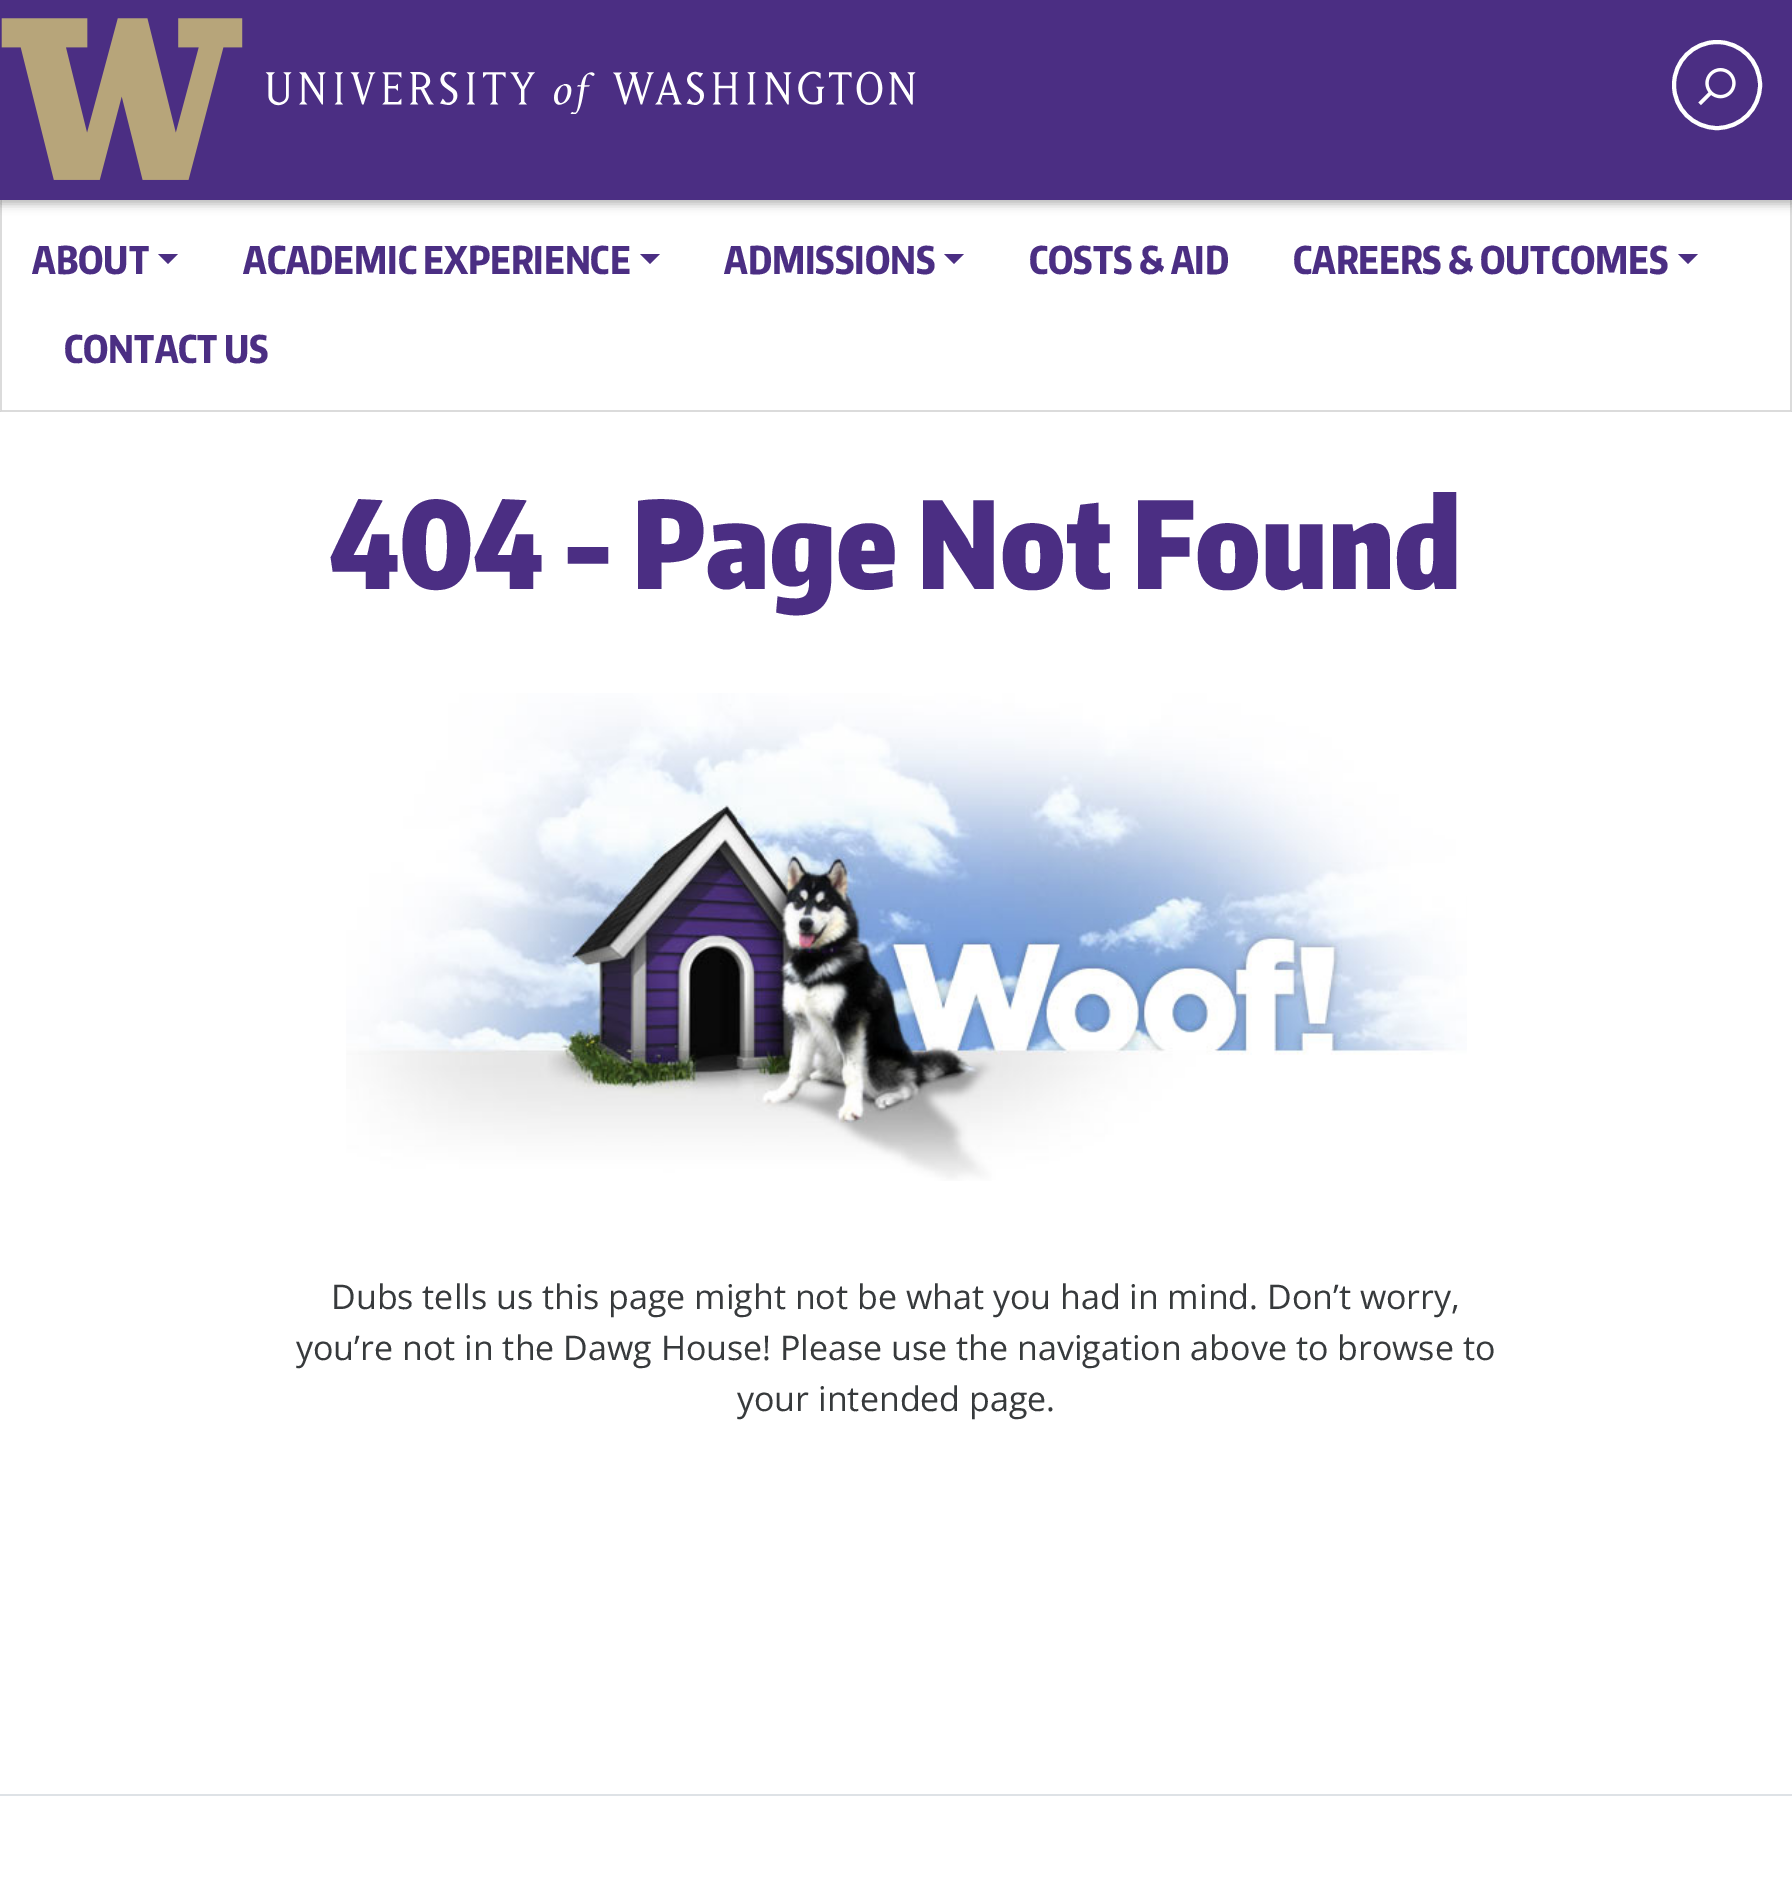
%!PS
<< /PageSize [1792 1897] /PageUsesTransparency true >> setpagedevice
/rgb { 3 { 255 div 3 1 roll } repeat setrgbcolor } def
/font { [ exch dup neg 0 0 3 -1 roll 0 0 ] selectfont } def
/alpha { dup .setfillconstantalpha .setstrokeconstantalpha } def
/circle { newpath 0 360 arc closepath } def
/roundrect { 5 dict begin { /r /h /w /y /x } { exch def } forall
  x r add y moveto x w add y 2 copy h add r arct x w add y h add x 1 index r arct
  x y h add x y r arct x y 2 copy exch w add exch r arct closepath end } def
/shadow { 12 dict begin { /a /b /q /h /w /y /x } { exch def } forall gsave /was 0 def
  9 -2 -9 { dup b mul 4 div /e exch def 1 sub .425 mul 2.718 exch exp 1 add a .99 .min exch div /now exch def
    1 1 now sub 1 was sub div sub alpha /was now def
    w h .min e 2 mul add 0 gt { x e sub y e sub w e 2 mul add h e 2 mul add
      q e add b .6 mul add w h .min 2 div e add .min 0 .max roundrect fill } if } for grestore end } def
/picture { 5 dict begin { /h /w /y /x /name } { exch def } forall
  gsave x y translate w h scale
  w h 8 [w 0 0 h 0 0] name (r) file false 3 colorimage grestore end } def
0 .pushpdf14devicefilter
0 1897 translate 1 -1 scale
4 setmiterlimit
255 255 255 rgb
0 0 1792 1897 rectfill
219 219 219 rgb
1792 200 moveto 1792 412 lineto 1790 410 lineto 1790 200 lineto closepath fill
0.14 alpha
0 0 0 rgb
1792 412 moveto 0 412 lineto 2 410 lineto 1790 410 lineto closepath fill
0 412 moveto 0 200 lineto 2 200 lineto 2 410 lineto closepath fill
1 alpha
0 4 1792 200 0 5 0.3 shadow
75 46 131 rgb
0 0 1792 200 rectfill
(img/1.rgb) 1 18 242 162 picture
(img/2.rgb) 265 71 651 43 picture
255 255 255 rgb
4 setlinewidth
1717 85 43 circle stroke
(img/3.rgb) 1698 68 38 38 picture
75 46 131 rgb
158 254 moveto 178 254 lineto 168 264 lineto closepath fill
640 254 moveto 660 254 lineto 650 264 lineto closepath fill
944 254 moveto 964 254 lineto 954 264 lineto closepath fill
1678 254 moveto 1698 254 lineto 1688 264 lineto closepath fill
(img/4.rgb) 346 693 1121 488 picture
222 226 230 rgb
0 1794 1792 2 rectfill
/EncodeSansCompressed-ExtraBold 38 font
75 46 131 rgb
[
  [(ABOUT) 32 274]
  [(ACADEMIC EXPERIENCE) 243 274]
  [(ADMISSIONS) 724 274]
  [(COSTS & AID) 1029 274]
  [(CAREERS & OUTCOMES) 1293 274]
  [(CONTACT US) 64 363]
] { aload pop moveto show } forall
/EncodeSansCompressed-Black 120 font
330 589 moveto (404 - Page Not Found) show
/OpenSans-Regular 34 font
55 58 60 rgb
[
  [(Dubs tells us this page might not be what you had in mind. Don’t worry,) 331 1309]
  [(you’re not in the Dawg House! Please use the navigation above to browse to) 296 1360]
  [(your intended page.) 737 1411]
] { aload pop moveto show } forall
.poppdf14devicefilter showpage
